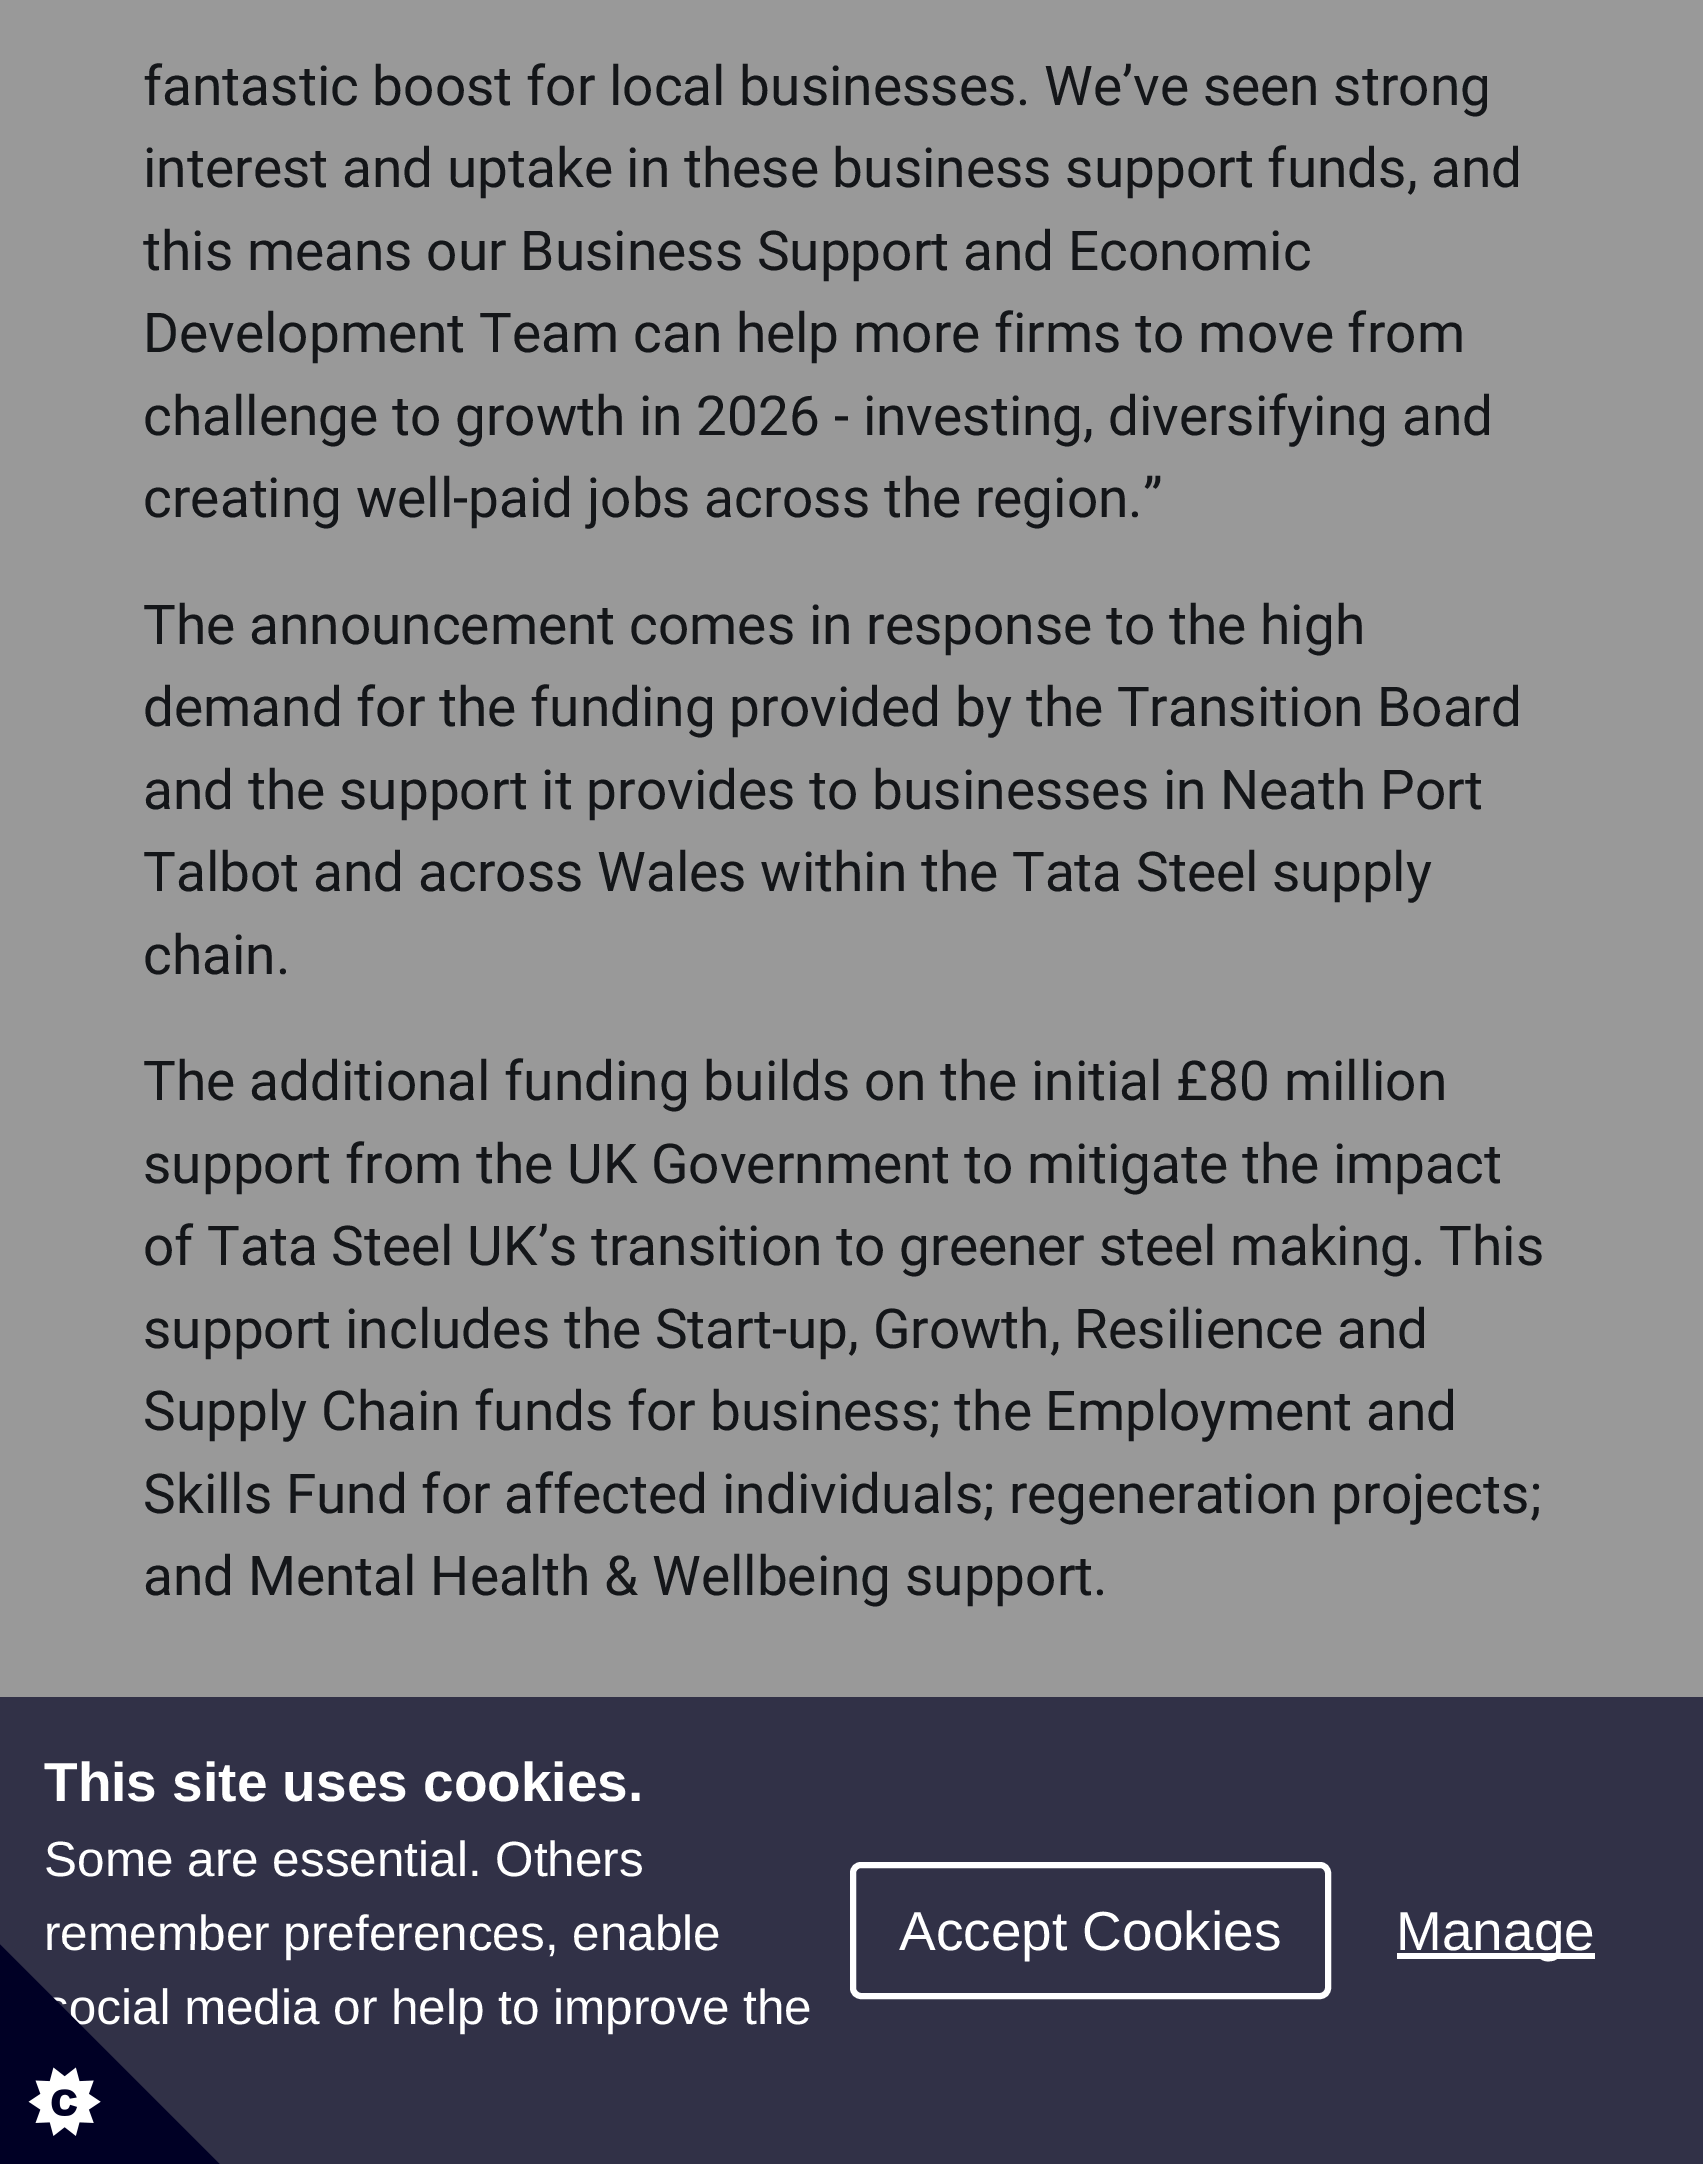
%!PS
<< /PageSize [1703 2164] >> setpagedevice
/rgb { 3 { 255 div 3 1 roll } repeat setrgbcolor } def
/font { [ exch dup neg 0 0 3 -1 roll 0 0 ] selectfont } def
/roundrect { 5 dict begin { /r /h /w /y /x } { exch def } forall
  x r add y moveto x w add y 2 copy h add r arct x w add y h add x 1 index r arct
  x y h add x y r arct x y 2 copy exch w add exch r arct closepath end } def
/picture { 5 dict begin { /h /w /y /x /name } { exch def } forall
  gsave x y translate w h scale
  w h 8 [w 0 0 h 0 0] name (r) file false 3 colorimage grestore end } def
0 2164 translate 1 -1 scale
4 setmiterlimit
153 153 153 rgb
0 0 1703 2164 rectfill
49 49 71 rgb
0 1697 1703 467 rectfill
255 255 255 rgb
6 setlinewidth
853 1865 475 131 8 roundrect stroke
1397 1953 198 6 rectfill
/Roboto-Regular 55 font
20 22 25 rgb
[
  [(fantastic boost for local businesses. We’ve seen strong) 143 105]
  [(interest and uptake in these business support funds, and) 143 187]
  [(this means our Business Support and Economic) 143 270]
  [(Development Team can help more firms to move from) 143 352]
  [(challenge to growth in 2026 - investing, diversifying and) 143 435]
  [(creating well-paid jobs across the region.”) 143 517]
  [(The announcement comes in response to the high) 143 644]
  [(demand for the funding provided by the Transition Board) 143 726]
  [(and the support it provides to businesses in Neath Port) 143 809]
  [(Talbot and across Wales within the Tata Steel supply) 143 891]
  [(chain.) 143 974]
  [(The additional funding builds on the initial £80 million) 143 1100]
  [(support from the UK Government to mitigate the impact) 143 1183]
  [(of Tata Steel UK’s transition to greener steel making. This) 143 1265]
  [(support includes the Start-up, Growth, Resilience and) 143 1348]
  [(Supply Chain funds for business; the Employment and) 143 1430]
  [(Skills Fund for affected individuals; regeneration projects;) 143 1513]
  [(and Mental Health & Wellbeing support.) 143 1595]
] { aload pop moveto show } forall
/LiberationSans-Bold 55 font
255 255 255 rgb
44 1801 moveto (This site uses cookies.) show
/LiberationSans-Regular 49.5 font
[
  [(Some are essential. Others) 44 1876]
  [(remember preferences, enable) 44 1950]
  [(ocial media or help to improve the) 69 2024]
] { aload pop moveto show } forall
/LiberationSans-Regular 55 font
899 1950 moveto (Accept Cookies) show
1396 1950 moveto (Manage) show
(img/1.rgb) 0 1944 220 220 picture
showpage
